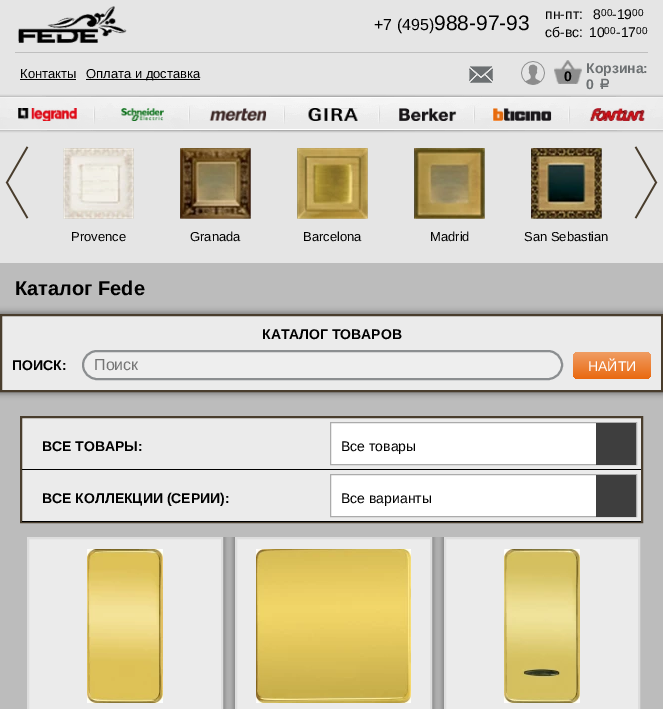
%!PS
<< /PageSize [663 709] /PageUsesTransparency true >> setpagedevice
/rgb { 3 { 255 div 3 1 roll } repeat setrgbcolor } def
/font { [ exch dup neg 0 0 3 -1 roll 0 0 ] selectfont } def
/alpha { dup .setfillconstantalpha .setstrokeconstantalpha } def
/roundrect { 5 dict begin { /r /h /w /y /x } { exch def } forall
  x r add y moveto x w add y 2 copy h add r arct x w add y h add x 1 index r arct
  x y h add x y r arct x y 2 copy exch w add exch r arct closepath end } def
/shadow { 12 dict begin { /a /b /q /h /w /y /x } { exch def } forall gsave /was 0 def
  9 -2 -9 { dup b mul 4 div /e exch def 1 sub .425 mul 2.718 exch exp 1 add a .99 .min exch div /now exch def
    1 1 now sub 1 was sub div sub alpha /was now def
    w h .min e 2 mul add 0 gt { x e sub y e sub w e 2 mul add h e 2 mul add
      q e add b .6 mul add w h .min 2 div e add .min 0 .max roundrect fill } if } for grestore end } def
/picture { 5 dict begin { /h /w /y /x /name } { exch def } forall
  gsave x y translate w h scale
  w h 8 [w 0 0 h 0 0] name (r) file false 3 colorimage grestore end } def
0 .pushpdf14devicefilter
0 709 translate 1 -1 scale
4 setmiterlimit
188 188 188 rgb
0 0 663 709 rectfill
229 229 229 rgb
0 0 663 263 rectfill
(img/1.rgb) 18 6 109 37 picture
[
  [15 52 633 1 191 191 191]
  [20 79 56 1 0 0 0]
  [86 79 114 1 0 0 0]
] { aload pop rgb rectfill } forall
(img/2.rgb) 469 66 24 17 picture
(img/3.rgb) 521 61 24 24 picture
(img/4.rgb) 554 60 28 24 picture
(img/5.rgb) 0 94 663 39 picture
(img/6.rgb) 18 108 59 13 picture
(img/7.rgb) 93 106 2 18 picture
(img/8.rgb) 121 108 43 13 picture
(img/9.rgb) 188 106 2 18 picture
(img/10.rgb) 209 108 58 13 picture
(img/11.rgb) 283 106 2 18 picture
(img/12.rgb) 308 108 50 13 picture
(img/13.rgb) 378 105 2 19 picture
(img/14.rgb) 399 108 58 13 picture
(img/15.rgb) 473 106 2 18 picture
(img/16.rgb) 493 108 59 13 picture
(img/17.rgb) 568 106 2 18 picture
(img/18.rgb) 589 108 56 13 picture
(img/19.rgb) 5 146 24 73 picture
(img/20.rgb) 634 146 24 73 picture
(img/21.rgb) 63 148 71 71 picture
(img/22.rgb) 180 148 71 71 picture
(img/23.rgb) 297 148 71 71 picture
(img/24.rgb) 414 148 71 71 picture
(img/25.rgb) 531 148 71 71 picture
-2 312 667 82 0 3 0.34 shadow
235 235 235 rgb
1 315 moveto 662 315 lineto 662 391 lineto 1 391 lineto closepath gsave fill grestore
73 61 45 rgb
2 setlinewidth
stroke
238 238 238 rgb
83 351 479 28 14 roundrect gsave fill grestore
139 142 144 rgb
stroke
gsave 573 352 78 27 5 roundrect clip newpath
<< /ShadingType 2 /ColorSpace /DeviceRGB /Coords [612 352 612 379] /Extend [true true] /Function << /FunctionType 2 /Domain [0 1] /C0 [0.941 0.616 0.388] /C1 [0.914 0.412 0.063] /N 1 >> >> shfill grestore
235 235 235 rgb
21 417 moveto 642 417 lineto 642 522 lineto 21 522 lineto closepath gsave fill grestore
73 61 45 rgb
stroke
0 0 0 rgb
22 469 619 1 rectfill
255 255 255 rgb
331 423 265 41 rectfill
171 171 171 rgb
1 setlinewidth
330.5 422.5 306 42 rectstroke
[
  [596 423 40 42 62 62 62]
  [22 521 619 1 0 0 0]
  [331 475 265 41 255 255 255]
] { aload pop rgb rectfill } forall
171 171 171 rgb
330.5 474.5 306 42 rectstroke
62 62 62 rgb
596 475 40 42 rectfill
gsave
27 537 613 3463 rectclip
0 0 0 rgb
25 535 200 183 0 3 0.34 shadow
grestore
235 235 235 rgb
28 538 moveto 222 538 lineto 222 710 lineto 28 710 lineto closepath gsave fill grestore
221 221 221 rgb
2 setlinewidth
stroke
(img/26.rgb) 87 549 76 154 picture
gsave
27 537 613 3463 rectclip
0 0 0 rgb
233 535 201 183 0 3 0.34 shadow
grestore
235 235 235 rgb
236 538 moveto 431 538 lineto 431 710 lineto 236 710 lineto closepath gsave fill grestore
221 221 221 rgb
stroke
(img/27.rgb) 256 549 155 154 picture
gsave
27 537 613 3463 rectclip
0 0 0 rgb
442 535 200 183 0 3 0.34 shadow
grestore
235 235 235 rgb
445 538 moveto 639 538 lineto 639 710 lineto 445 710 lineto closepath gsave fill grestore
221 221 221 rgb
stroke
(img/28.rgb) 504 549 76 154 picture
/LiberationSans-Regular 16 font
0 0 0 rgb
374 30 moveto (+7 \(495\)) show
/LiberationSans-Regular 21 font
434 30 moveto (988-97-93) show
/LiberationSans-Regular 14 font
545 19 moveto (пн-пт:) show
593 19 moveto (8) show
/LiberationSans-Regular 10 font
601 16 moveto (00) show
/LiberationSans-Regular 14 font
612 19 moveto (-19) show
/LiberationSans-Regular 10 font
632 16 moveto (00) show
/LiberationSans-Regular 14 font
545 37 moveto (сб-вс:) show
589 37 moveto (10) show
/LiberationSans-Regular 10 font
604 34 moveto (00) show
/LiberationSans-Regular 14 font
616 37 moveto (-17) show
/LiberationSans-Regular 10 font
636 34 moveto (00) show
/LiberationSans-Regular 13 font
20 78 moveto (Контакты) show
86 78 moveto (Оплата и доставка) show
/LiberationSans-Bold 14 font
564 81 moveto (0) show
108 112 114 rgb
586 73 moveto (Корзина:) show
586 89 moveto (0) show
/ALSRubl-Bold 14 font
598 89 moveto (a) show
/LiberationSans-Regular 13 font
0 0 0 rgb
[
  [(Provence) 71 241]
  [(Granada) 190 241]
  [(Barcelona) 303 241]
  [(Madrid) 430 241]
  [(San Sebastian) 524 241]
] { aload pop moveto show } forall
/LiberationSans-Bold 20 font
15 295 moveto (Каталог Fede) show
/LiberationSans-Bold 14 font
262 339 moveto (КАТАЛОГ ТОВАРОВ) show
12 370 moveto (ПОИСК:) show
/LiberationSans-Regular 16 font
117 117 117 rgb
94 370 moveto (Поиск) show
/LiberationSans-Regular 14 font
255 255 255 rgb
588 371 moveto (НАЙТИ) show
/LiberationSans-Bold 14 font
0 0 0 rgb
42 451 moveto (ВСЕ ТОВАРЫ:) show
/LiberationSans-Regular 14 font
341 451 moveto (Все товары) show
/LiberationSans-Bold 14 font
42 503 moveto (ВСЕ КОЛЛЕКЦИИ \(СЕРИИ\):) show
/LiberationSans-Regular 14 font
341 503 moveto (Все варианты) show
.poppdf14devicefilter showpage
